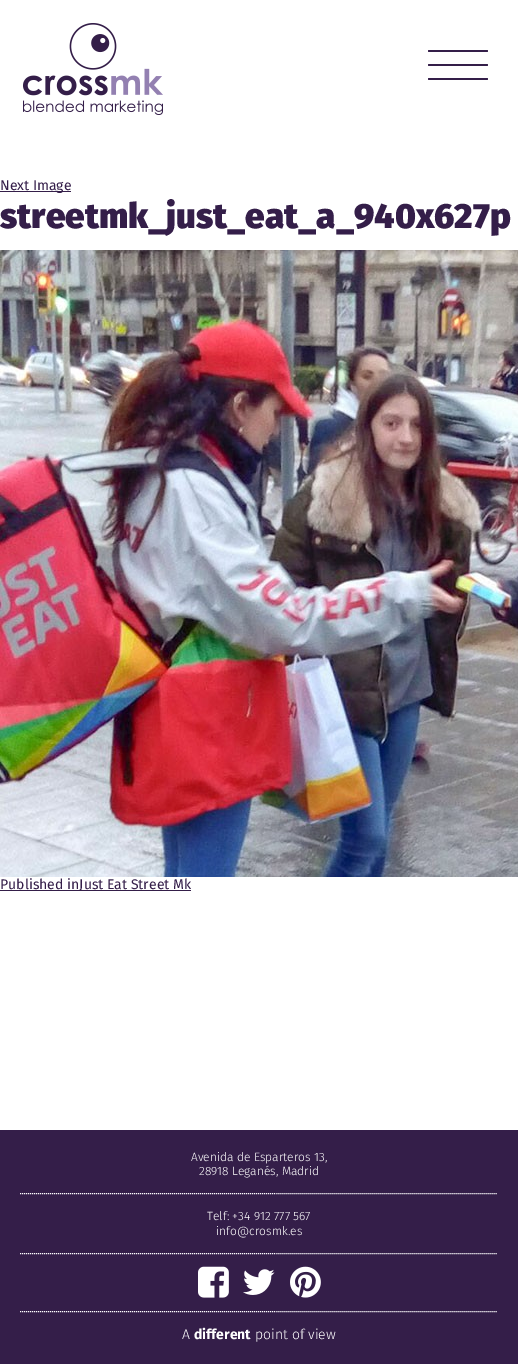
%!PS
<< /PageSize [518 1364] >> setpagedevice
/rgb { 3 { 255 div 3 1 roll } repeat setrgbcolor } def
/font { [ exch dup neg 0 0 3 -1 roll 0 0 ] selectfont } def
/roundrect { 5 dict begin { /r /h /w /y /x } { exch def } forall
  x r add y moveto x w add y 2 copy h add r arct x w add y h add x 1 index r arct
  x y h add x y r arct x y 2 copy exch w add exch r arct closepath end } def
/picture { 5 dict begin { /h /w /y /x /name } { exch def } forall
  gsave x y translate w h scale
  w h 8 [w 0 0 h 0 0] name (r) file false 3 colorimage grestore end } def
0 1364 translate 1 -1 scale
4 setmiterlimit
255 255 255 rgb
0 0 518 1364 rectfill
(img/1.rgb) 23 23 140 92 picture
52 30 73 rgb
428 50 60 2 1 roundrect fill
428 64 60 2 1 roundrect fill
428 78 60 2 1 roundrect fill
0 191 71 1 rectfill
(img/2.rgb) 0 250 518 627 picture
0 890 191 1 rectfill
0 1130 518 234 rectfill
255 255 255 rgb
[1 1] 0 setdash
20 1193.5 moveto 498 1193.5 lineto stroke
20 1253.5 moveto 498 1253.5 lineto stroke
20 1311.5 moveto 498 1311.5 lineto stroke
(img/3.rgb) 198 1266 31 32 picture
(img/4.rgb) 243 1269 32 26 picture
(img/5.rgb) 290 1266 31 32 picture
/FiraSans-Regular 14 font
52 30 73 rgb
0 190 moveto (Next Image) show
/FiraSans-Black 35 font
0 228 moveto (streetmk_just_eat_a_940x627p) show
/FiraSans-Regular 14 font
0 889 moveto (Published inJust Eat Street Mk) show
/FiraSans-Light 12 font
255 255 255 rgb
[
  [(Avenida de Esparteros 13,) 191 1161]
  [(28918 Leganés, Madrid) 199 1175]
  [(Telf: +34 912 777 567) 207 1220]
  [(info@crosmk.es) 216 1235]
] { aload pop moveto show } forall
/FiraSans-Light 14 font
182 1339 moveto (A) show
/FiraSans-Bold 14 font
194 1339 moveto (different) show
/FiraSans-Light 14 font
255 1339 moveto (point of view) show
showpage
